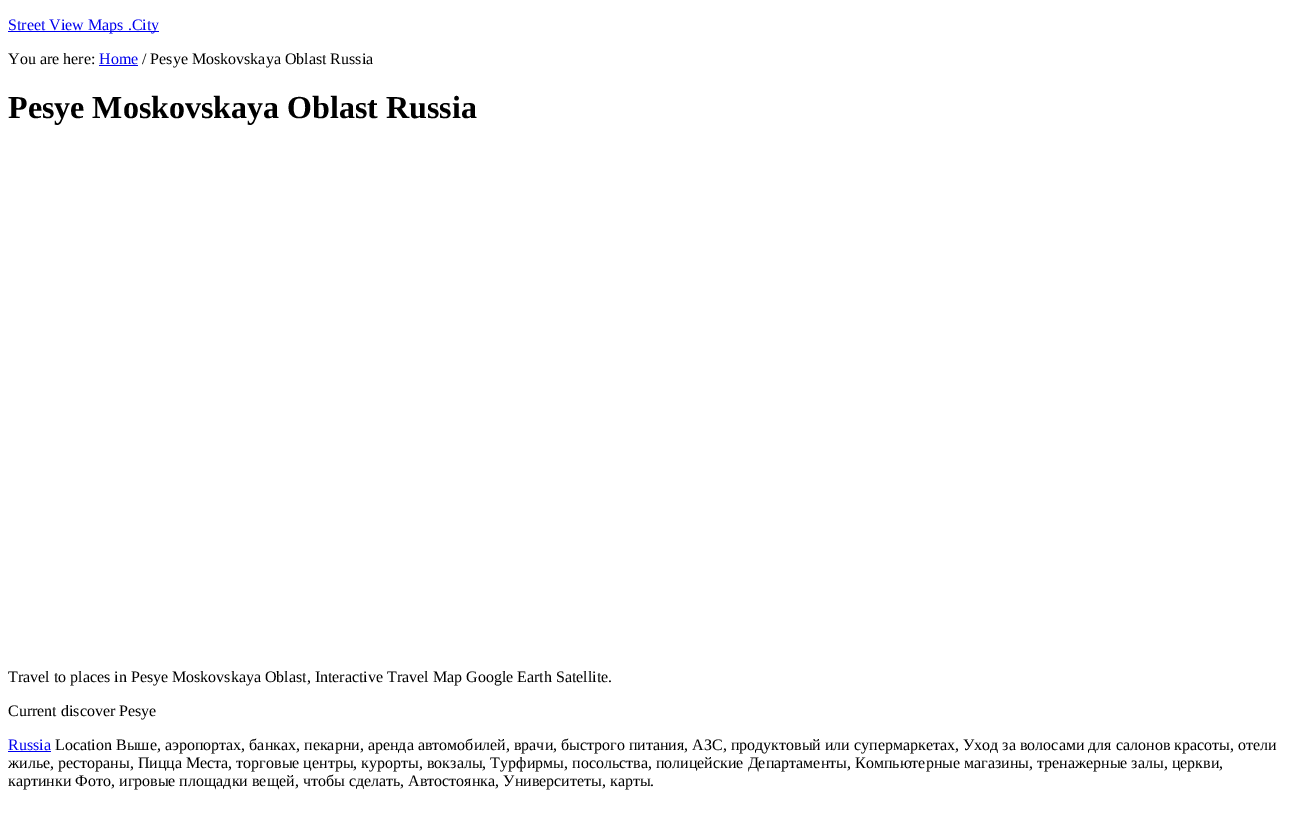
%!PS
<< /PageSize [1294 839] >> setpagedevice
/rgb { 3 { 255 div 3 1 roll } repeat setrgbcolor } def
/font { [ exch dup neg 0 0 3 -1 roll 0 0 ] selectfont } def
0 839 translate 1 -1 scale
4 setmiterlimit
255 255 255 rgb
0 0 1294 839 rectfill
[
  [8 31 151 1 0 0 238]
  [99 65 39 1 0 0 238]
  [8 751 43 1 0 0 238]
] { aload pop rgb rectfill } forall
/LiberationSerif-Regular 16 font
8 30 moveto (Street View Maps .City) show
0 0 0 rgb
8 64 moveto (You are here:) show
0 0 238 rgb
99 64 moveto (Home) show
0 0 0 rgb
142 64 moveto (/ Pesye Moskovskaya Oblast Russia) show
/LiberationSerif-Bold 32 font
8 118 moveto (Pesye Moskovskaya Oblast Russia) show
/LiberationSerif-Regular 16 font
8 682 moveto (Travel to places in Pesye Moskovskaya Oblast, Interactive Travel Map Google Earth Satellite.) show
8 716 moveto (Current discover Pesye) show
0 0 238 rgb
8 750 moveto (Russia) show
0 0 0 rgb
[
  [(Location Выше, аэропортах, банках, пекарни, аренда автомобилей, врачи, быстрого питания, АЗС, продуктовый или супермаркетах, Уход за волосами для салонов красоты, отели) 55 750]
  [(жилье, рестораны, Пицца Места, торговые центры, курорты, вокзалы, Турфирмы, посольства, полицейские Департаменты, Компьютерные магазины, тренажерные залы, церкви,) 8 768]
  [(картинки Фото, игровые площадки вещей, чтобы сделать, Автостоянка, Университеты, карты.) 8 786]
] { aload pop moveto show } forall
showpage
